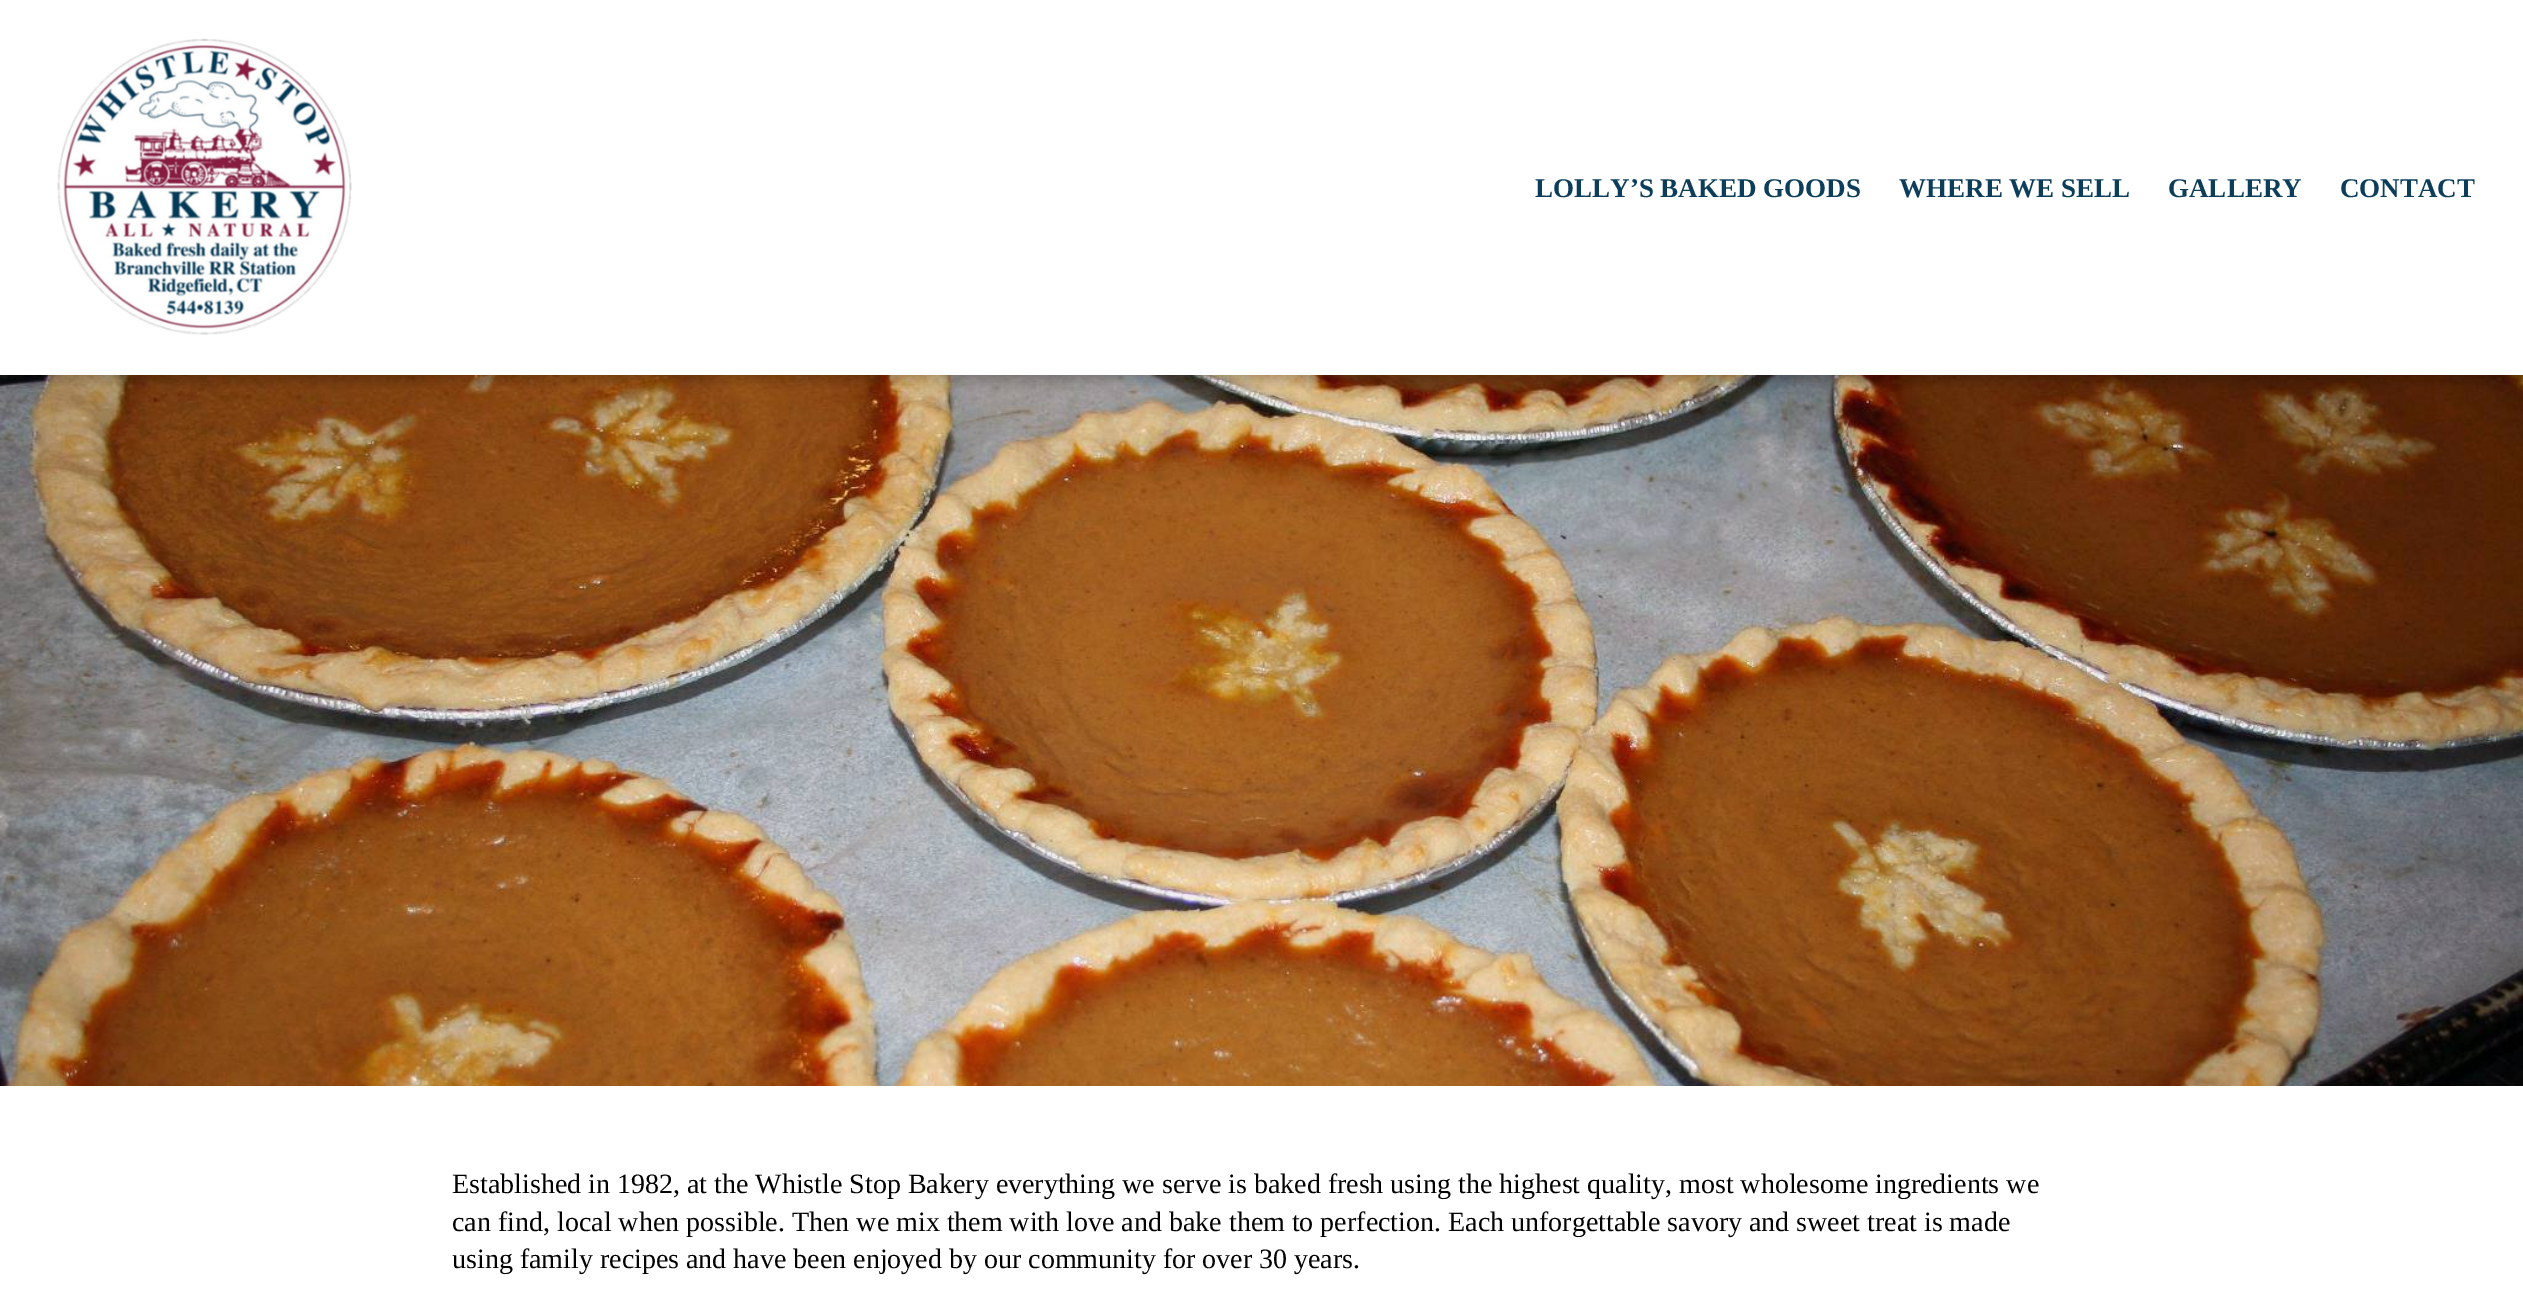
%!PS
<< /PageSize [2523 1309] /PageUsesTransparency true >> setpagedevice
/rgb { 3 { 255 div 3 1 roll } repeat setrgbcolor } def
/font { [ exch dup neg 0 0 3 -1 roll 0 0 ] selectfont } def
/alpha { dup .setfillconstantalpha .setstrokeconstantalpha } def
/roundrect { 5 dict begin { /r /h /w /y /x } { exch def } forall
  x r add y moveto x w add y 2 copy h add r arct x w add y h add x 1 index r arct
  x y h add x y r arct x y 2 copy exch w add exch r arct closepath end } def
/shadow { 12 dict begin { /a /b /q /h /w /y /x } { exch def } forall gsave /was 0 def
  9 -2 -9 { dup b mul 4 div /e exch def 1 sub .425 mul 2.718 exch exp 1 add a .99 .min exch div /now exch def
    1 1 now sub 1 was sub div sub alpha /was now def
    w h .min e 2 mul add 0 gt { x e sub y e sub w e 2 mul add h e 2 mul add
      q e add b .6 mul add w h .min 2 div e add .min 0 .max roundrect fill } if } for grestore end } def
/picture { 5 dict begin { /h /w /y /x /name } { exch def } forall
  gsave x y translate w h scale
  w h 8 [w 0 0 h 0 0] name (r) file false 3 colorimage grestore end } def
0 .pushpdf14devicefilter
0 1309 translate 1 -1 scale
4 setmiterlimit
255 255 255 rgb
0 0 2523 1309 rectfill
(img/2.rgb) 0 375 2523 711 picture
gsave
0 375 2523 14 rectclip
0 0 0 rgb
0 6 2523 375 0 6 0.2 shadow
grestore
(img/1.rgb) 57 38 295 297 picture
/LiberationSerif-Bold 27 font
12 61 90 rgb
[
  [(LOLLY’S BAKED GOODS) 1535 197]
  [(WHERE WE SELL) 1899 197]
  [(GALLERY) 2168 197]
  [(CONTACT) 2340 197]
] { aload pop moveto show } forall
/LiberationSerif-Regular 28 font
0 0 0 rgb
[
  [(Established in 1982, at the Whistle Stop Bakery everything we serve is baked fresh using the highest quality, most wholesome ingredients we) 452 1193]
  [(can find, local when possible. Then we mix them with love and bake them to perfection. Each unforgettable savory and sweet treat is made) 452 1231]
  [(using family recipes and have been enjoyed by our community for over 30 years.) 452 1268]
] { aload pop moveto show } forall
.poppdf14devicefilter showpage
